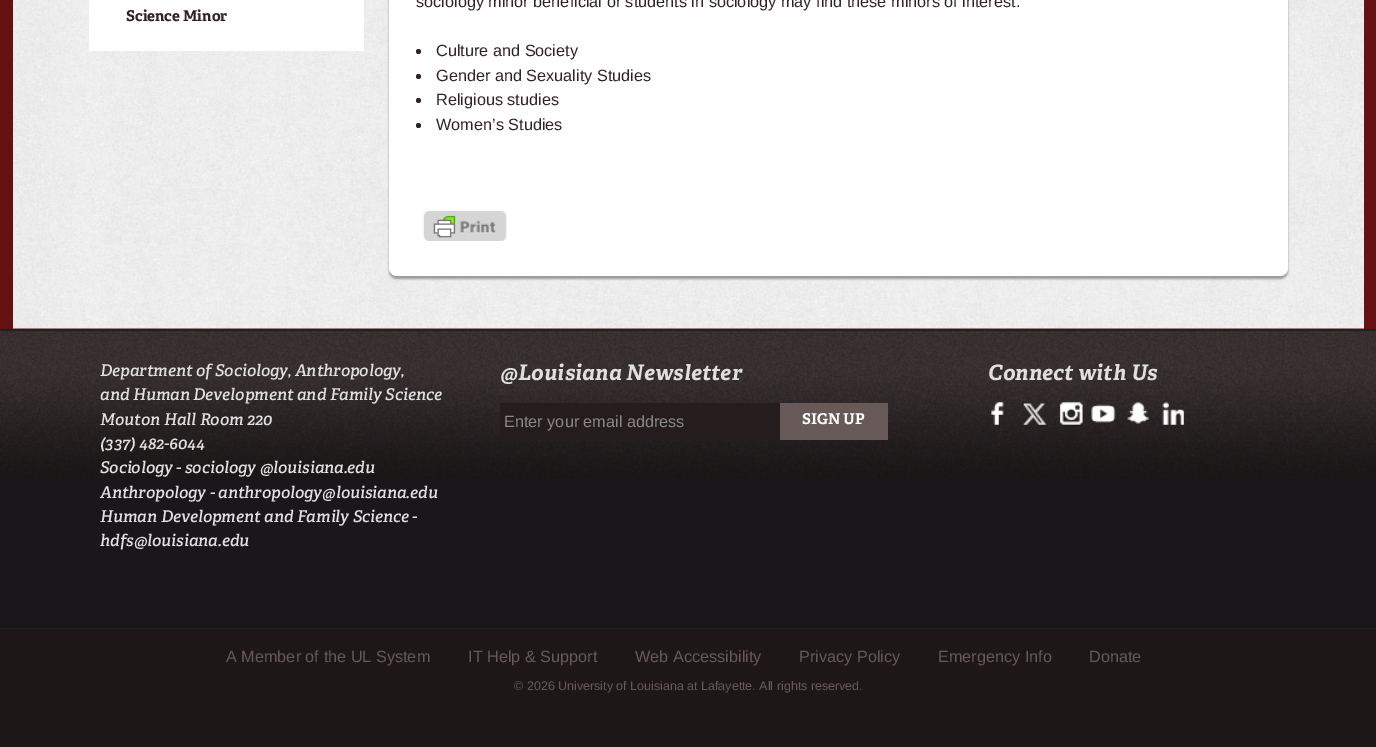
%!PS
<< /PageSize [1376 747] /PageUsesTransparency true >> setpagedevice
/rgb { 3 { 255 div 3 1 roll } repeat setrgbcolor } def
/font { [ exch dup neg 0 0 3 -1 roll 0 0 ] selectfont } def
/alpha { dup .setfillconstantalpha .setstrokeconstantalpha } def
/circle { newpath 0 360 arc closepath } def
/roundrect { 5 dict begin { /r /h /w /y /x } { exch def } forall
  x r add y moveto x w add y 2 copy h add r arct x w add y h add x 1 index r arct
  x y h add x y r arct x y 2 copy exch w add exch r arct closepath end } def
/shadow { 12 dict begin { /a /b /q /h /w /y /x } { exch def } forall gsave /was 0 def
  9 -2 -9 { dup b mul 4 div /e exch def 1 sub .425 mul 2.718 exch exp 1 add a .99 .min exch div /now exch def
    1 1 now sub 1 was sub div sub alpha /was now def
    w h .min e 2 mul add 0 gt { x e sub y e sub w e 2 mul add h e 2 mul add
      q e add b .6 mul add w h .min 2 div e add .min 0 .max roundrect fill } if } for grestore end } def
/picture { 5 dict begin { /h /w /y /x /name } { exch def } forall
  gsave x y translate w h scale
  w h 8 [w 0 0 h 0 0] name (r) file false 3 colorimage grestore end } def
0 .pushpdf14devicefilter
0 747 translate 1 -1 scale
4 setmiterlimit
29 23 24 rgb
0 0 1376 747 rectfill
102 17 17 rgb
13 328 1351 1 rectfill
(img/1.rgb) 13 0 1351 329 picture
[
  [1364 0 12 329 102 17 17]
  [0 0 13 329 102 17 17]
  [89 0 275 51 255 255 255]
] { aload pop rgb rectfill } forall
153 153 153 rgb
389 -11 899 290 8 1 1 shadow
255 255 255 rgb
389 -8 899 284 8 roundrect fill
51 34 34 rgb
418.5 51.5 2.5 circle fill
418.5 76.5 2.5 circle fill
418.5 100.5 2.5 circle fill
418.5 125.5 2.5 circle fill
(img/2.rgb) 423 211 84 30 picture
25 23 25 rgb
0 478 1376 150 rectfill
(img/3.rgb) 0 329 1376 149 picture
[
  [0 628 1376 1 31 28 28]
  [500 403 280 37 37 29 29]
  [780 403 108 37 103 89 88]
] { aload pop rgb rectfill } forall
(img/4.rgb) 991 402 13 23 picture
(img/5.rgb) 1023 403 24 22 picture
(img/6.rgb) 1059 402 24 25 picture
(img/7.rgb) 1091 404 25 19 picture
(img/8.rgb) 1127 402 22 22 picture
(img/9.rgb) 1162 402 22 23 picture
/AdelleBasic-Bold 15 font
51 34 34 rgb
126 21 moveto (Science Minor) show
/LiberationSans-Regular 16.25 font
[
  [(sociology minor beneficial or students in sociology may find these minors of interest:) 416 7]
  [(Culture and Society) 436 56]
  [(Gender and Sexuality Studies) 436 81]
  [(Religious studies) 436 105]
  [(Women’s Studies) 436 130]
] { aload pop moveto show } forall
/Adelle-SemiBoldItalic 16.25 font
223 223 223 rgb
[
  [(Department of Sociology, Anthropology,) 100 376]
  [(and Human Development and Family Science) 100 400]
  [(Mouton Hall Room 220) 100 425]
  [(\(337\) 482-6044) 100 449]
  [(Sociology - sociology @louisiana.edu) 100 473]
  [(Anthropology - anthropology@louisiana.edu) 100 498]
  [(Human Development and Family Science -) 100 522]
  [(hdfs@louisiana.edu) 100 546]
] { aload pop moveto show } forall
/AdelleBasic-BoldItalic 21.25 font
500 380 moveto 0.3 0 (@Louisiana Newsletter) ashow
/LiberationSans-Regular 16.25 font
136 136 136 rgb
504 427 moveto (Enter your email address) show
/AdelleBasic-Bold 15 font
255 255 255 rgb
802 424 moveto (SIGN UP) show
/AdelleBasic-BoldItalic 21.25 font
223 223 223 rgb
988 380 moveto 0.3 0 (Connect with Us) ashow
/LiberationSans-Regular 16.25 font
103 89 88 rgb
[
  [(A Member of the UL System) 226 662]
  [(IT Help & Support) 468 662]
  [(Web Accessibility) 635 662]
  [(Privacy Policy) 799 662]
  [(Emergency Info) 938 662]
  [(Donate) 1089 662]
] { aload pop moveto show } forall
/LiberationSans-Regular 12.5 font
514 690 moveto (© 2026 University of Louisiana at Lafayette. All rights reserved.) show
.poppdf14devicefilter showpage
